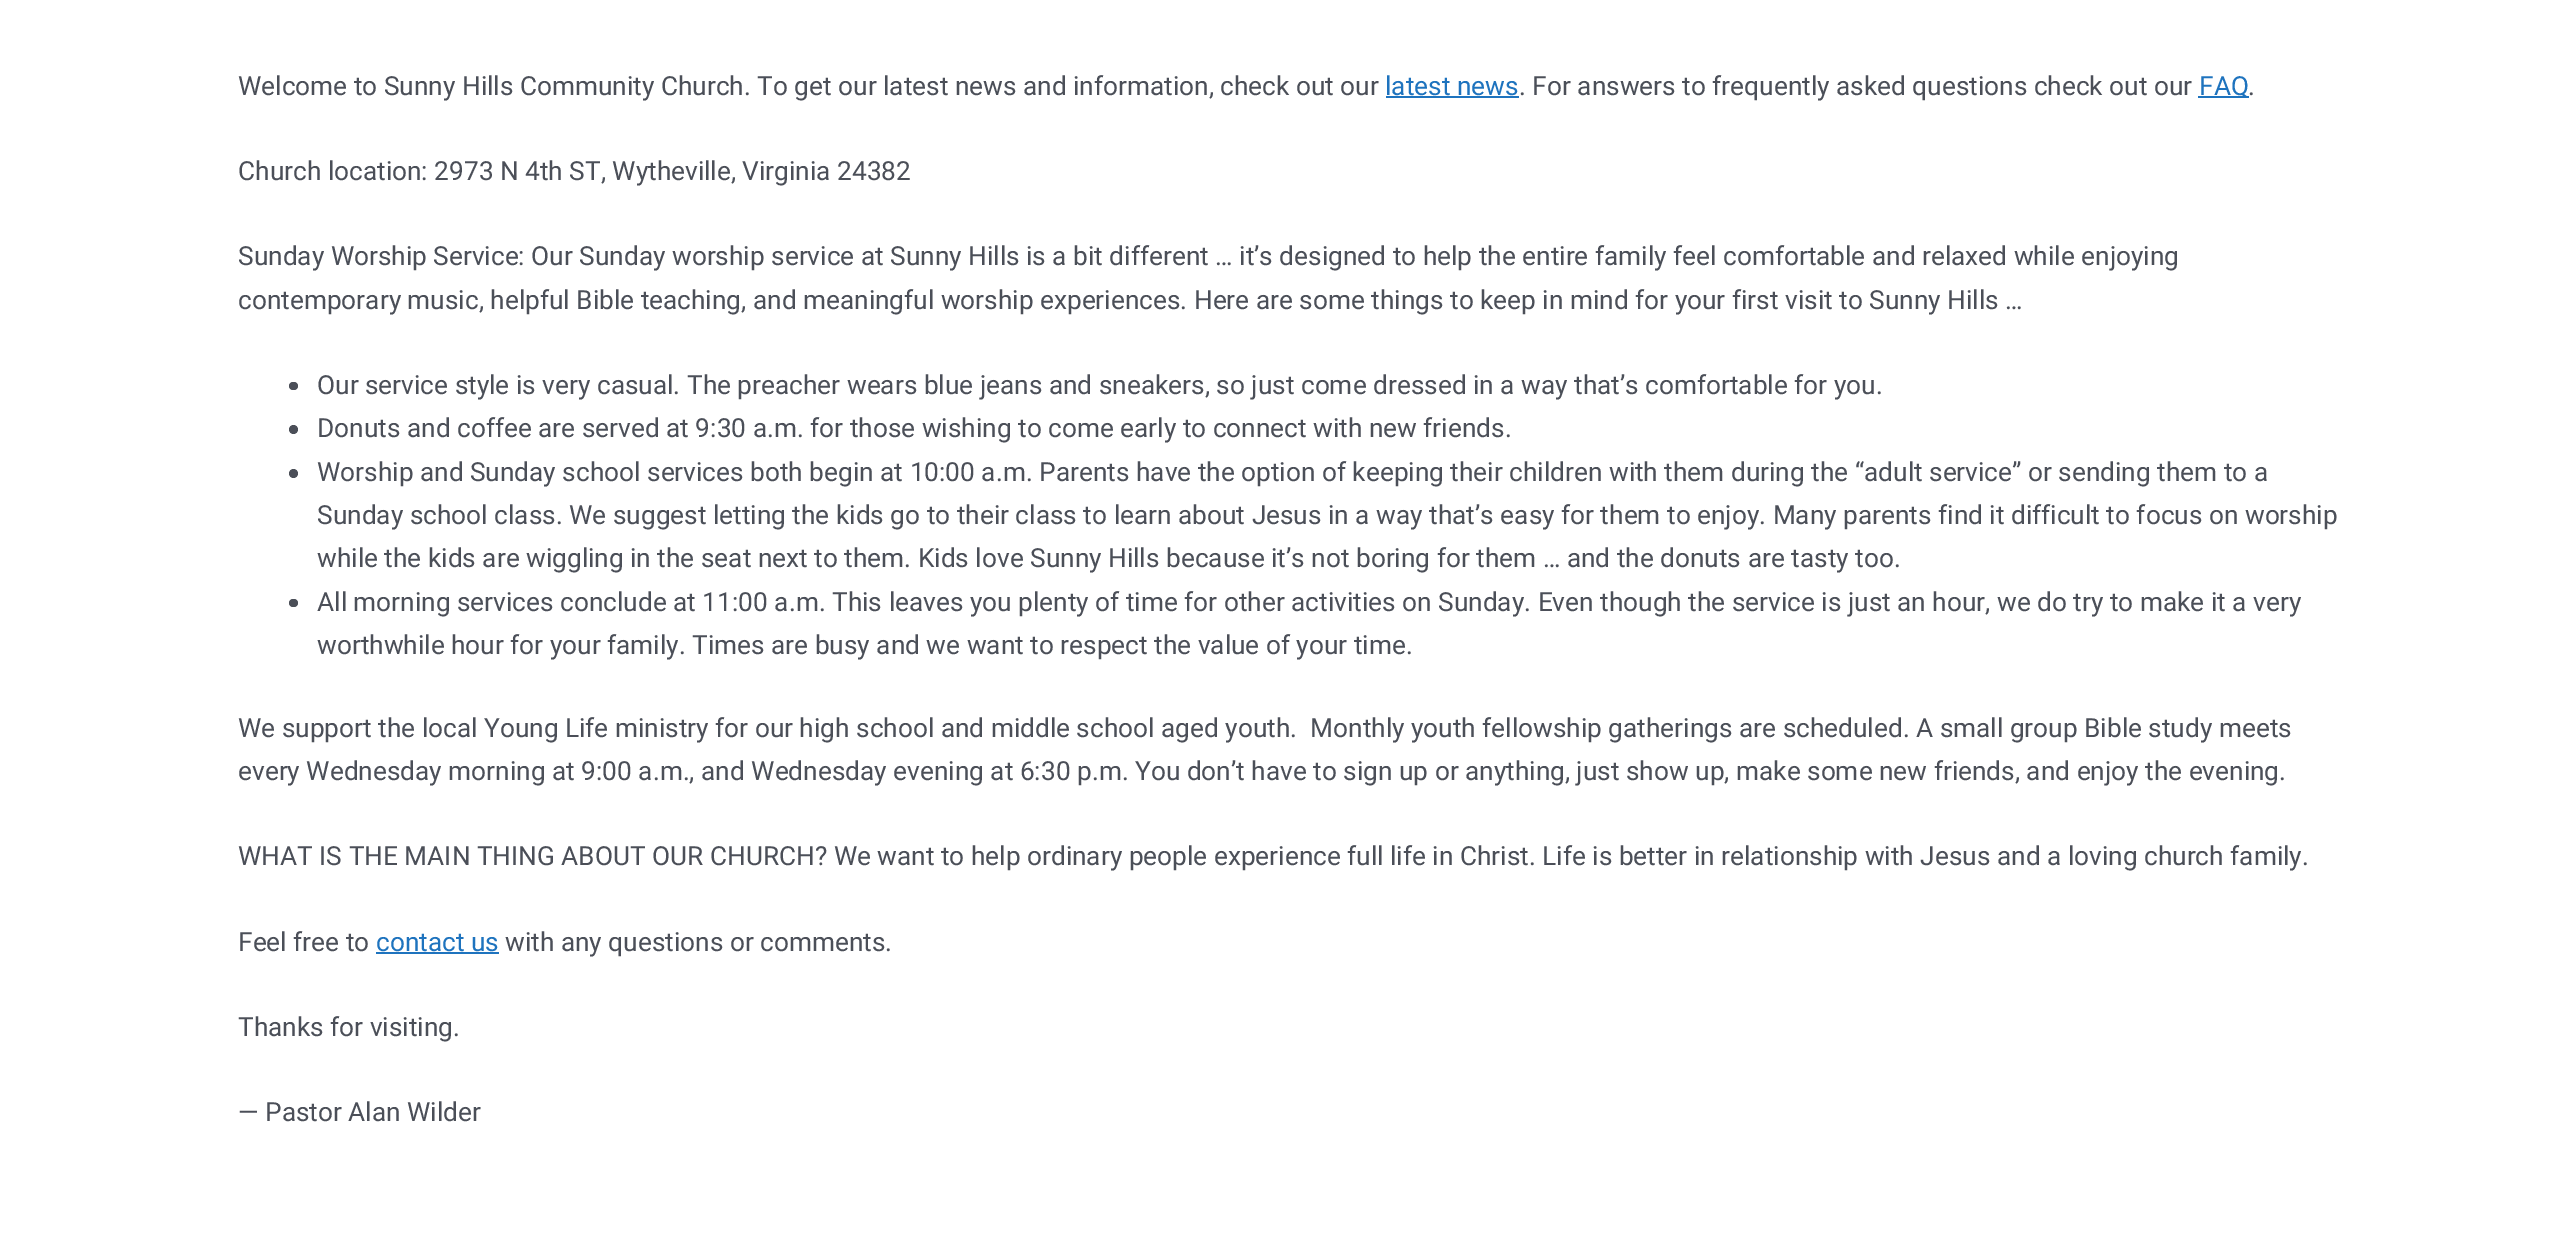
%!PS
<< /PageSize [2575 1236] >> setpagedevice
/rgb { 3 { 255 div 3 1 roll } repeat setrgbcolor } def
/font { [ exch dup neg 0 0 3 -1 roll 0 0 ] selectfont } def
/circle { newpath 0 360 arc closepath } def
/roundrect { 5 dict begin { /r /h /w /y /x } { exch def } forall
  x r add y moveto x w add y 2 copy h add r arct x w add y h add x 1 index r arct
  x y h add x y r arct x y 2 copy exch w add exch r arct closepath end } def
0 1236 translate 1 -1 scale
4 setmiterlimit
255 255 255 rgb
0 0 2575 1236 rectfill
30 115 190 rgb
1386 96 133 2 rectfill
2198 96 51 2 rectfill
75 79 88 rgb
289 382 9 8 4 roundrect fill
293.5 429.5 4.5 circle fill
293.5 473.5 4.5 circle fill
289 599 9 8 4 roundrect fill
30 115 190 rgb
376 952 123 2 rectfill
/Roboto-Regular 26.25 font
75 79 88 rgb
238 95 moveto (Welcome to Sunny Hills Community Church. To get our latest news and information, check out our) show
30 115 190 rgb
1385 95 moveto (latest news) show
75 79 88 rgb
1519 95 moveto (. For answers to frequently asked questions check out our) show
30 115 190 rgb
2199 95 moveto (FAQ) show
75 79 88 rgb
[
  [(.) 2248 95]
  [(Church location: 2973 N 4th ST, Wytheville, Virginia 24382) 238 180]
  [(Sunday Worship Service: Our Sunday worship service at Sunny Hills is a bit different … it’s designed to help the entire family feel comfortable and relaxed while enjoying) 238 265]
  [(contemporary music, helpful Bible teaching, and meaningful worship experiences. Here are some things to keep in mind for your first visit to Sunny Hills …) 238 309]
  [(Our service style is very casual. The preacher wears blue jeans and sneakers, so just come dressed in a way that’s comfortable for you.) 317 394]
  [(Donuts and coffee are served at 9:30 a.m. for those wishing to come early to connect with new friends.) 317 437]
  [(Worship and Sunday school services both begin at 10:00 a.m. Parents have the option of keeping their children with them during the “adult service” or sending them to a) 317 481]
  [(Sunday school class. We suggest letting the kids go to their class to learn about Jesus in a way that’s easy for them to enjoy. Many parents find it difficult to focus on worship) 317 524]
  [(while the kids are wiggling in the seat next to them. Kids love Sunny Hills because it’s not boring for them … and the donuts are tasty too.) 317 567]
  [(All morning services conclude at 11:00 a.m. This leaves you plenty of time for other activities on Sunday. Even though the service is just an hour, we do try to make it a very) 317 611]
  [(worthwhile hour for your family. Times are busy and we want to respect the value of your time.) 317 654]
  [(We support the local Young Life ministry for our high school and middle school aged youth.  Monthly youth fellowship gatherings are scheduled. A small group Bible study meets) 238 737]
  [(every Wednesday morning at 9:00 a.m., and Wednesday evening at 6:30 p.m. You don’t have to sign up or anything, just show up, make some new friends, and enjoy the evening.) 238 780]
  [(WHAT IS THE MAIN THING ABOUT OUR CHURCH? We want to help ordinary people experience full life in Christ. Life is better in relationship with Jesus and a loving church family.) 238 865]
  [(Feel free to) 238 951]
] { aload pop moveto show } forall
30 115 190 rgb
376 951 moveto (contact us) show
75 79 88 rgb
[
  [(with any questions or comments.) 505 951]
  [(Thanks for visiting.) 238 1036]
  [(— Pastor Alan Wilder) 238 1121]
] { aload pop moveto show } forall
showpage
